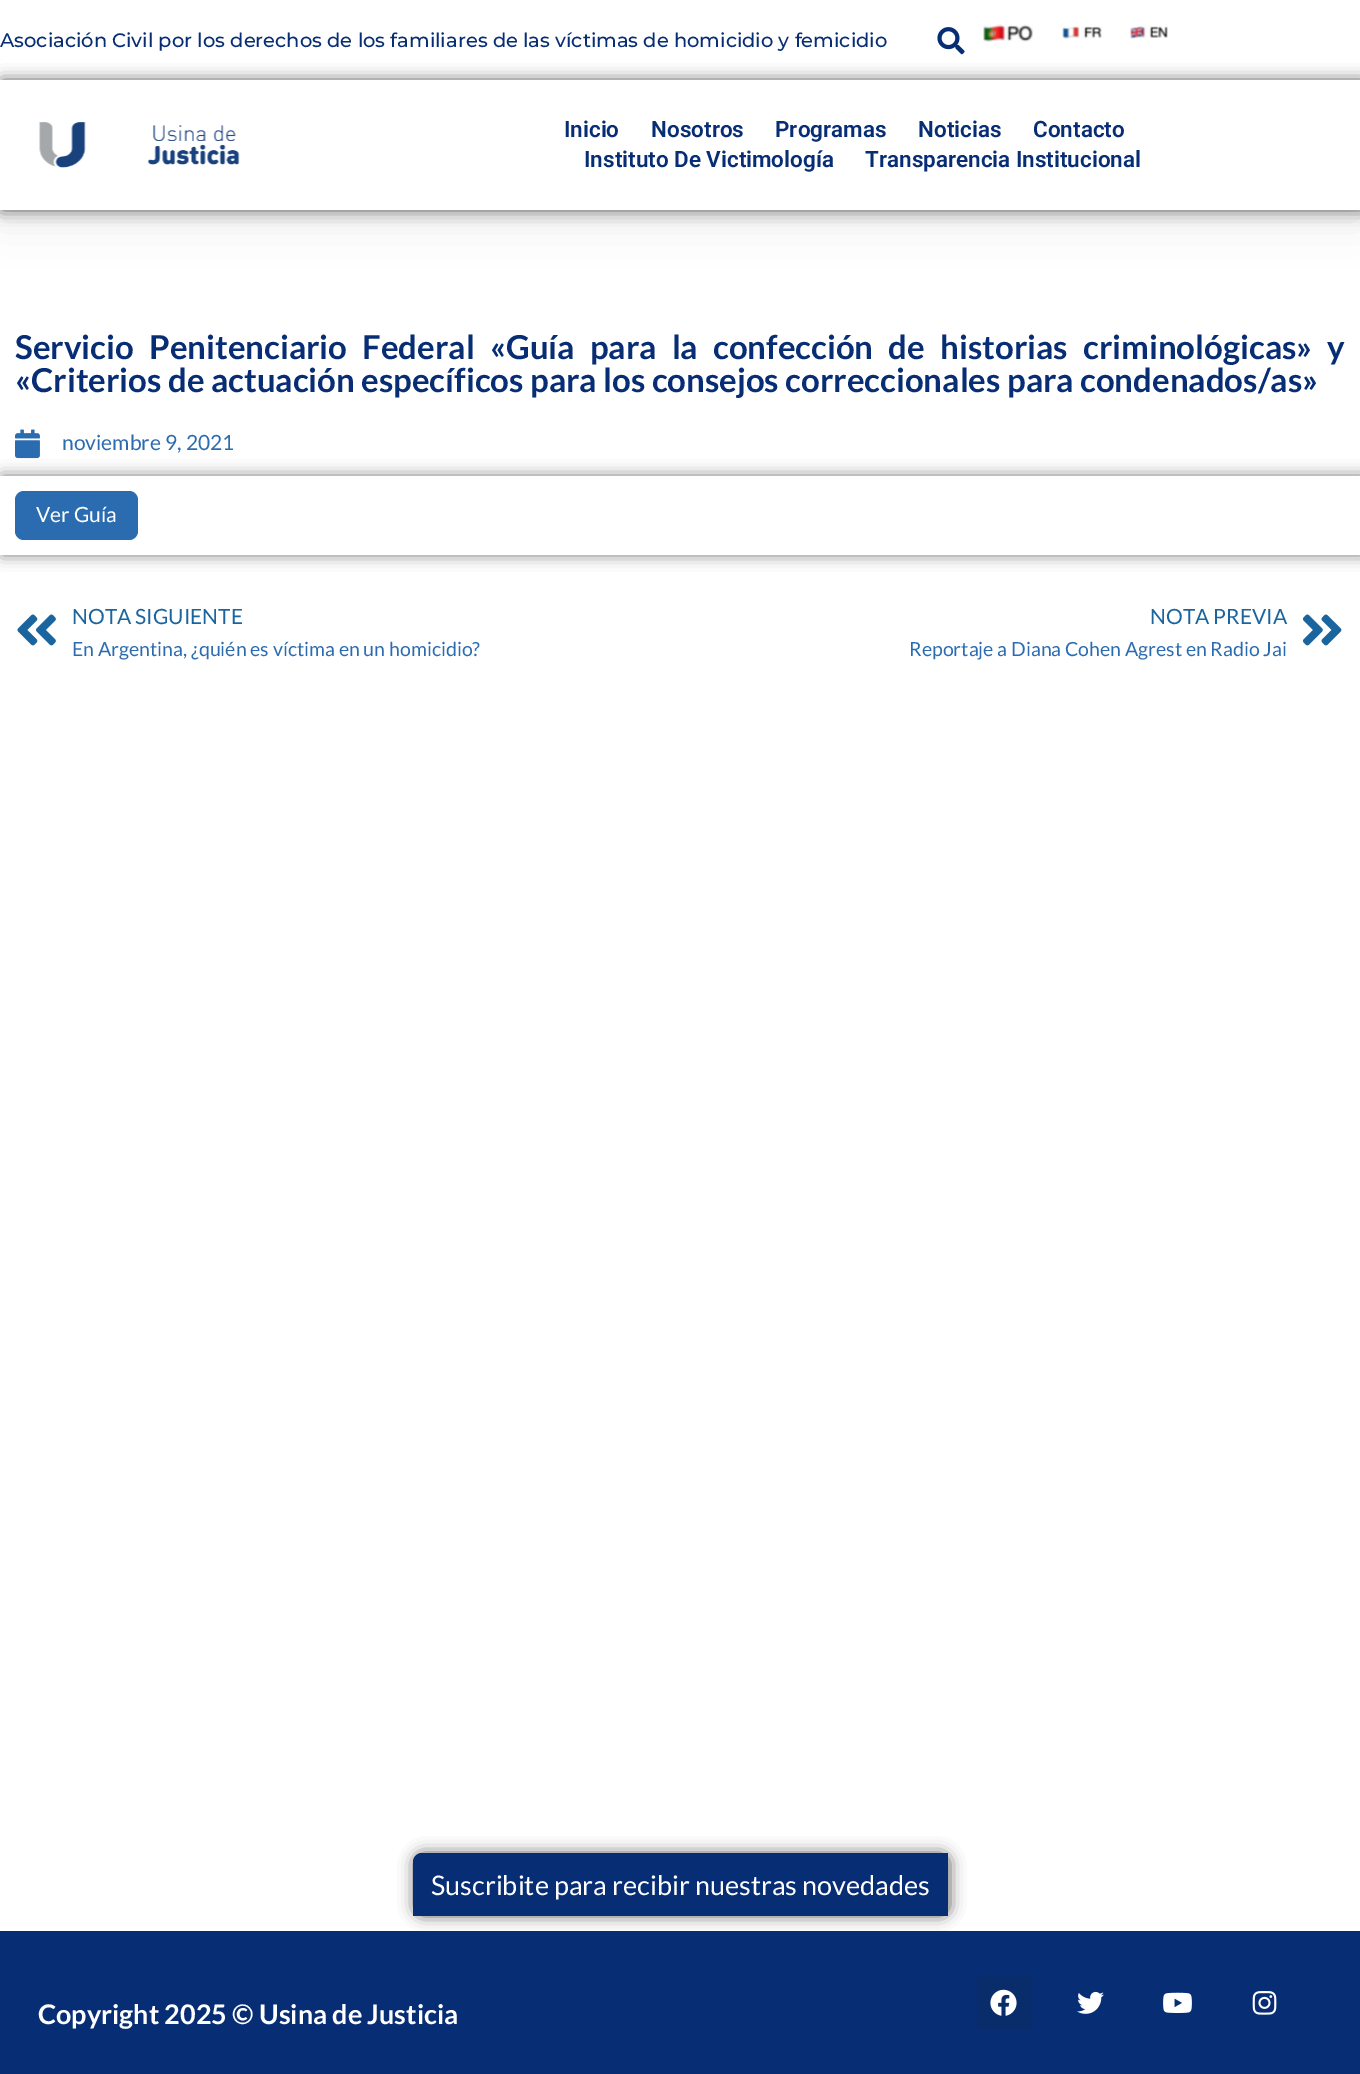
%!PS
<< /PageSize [1360 2074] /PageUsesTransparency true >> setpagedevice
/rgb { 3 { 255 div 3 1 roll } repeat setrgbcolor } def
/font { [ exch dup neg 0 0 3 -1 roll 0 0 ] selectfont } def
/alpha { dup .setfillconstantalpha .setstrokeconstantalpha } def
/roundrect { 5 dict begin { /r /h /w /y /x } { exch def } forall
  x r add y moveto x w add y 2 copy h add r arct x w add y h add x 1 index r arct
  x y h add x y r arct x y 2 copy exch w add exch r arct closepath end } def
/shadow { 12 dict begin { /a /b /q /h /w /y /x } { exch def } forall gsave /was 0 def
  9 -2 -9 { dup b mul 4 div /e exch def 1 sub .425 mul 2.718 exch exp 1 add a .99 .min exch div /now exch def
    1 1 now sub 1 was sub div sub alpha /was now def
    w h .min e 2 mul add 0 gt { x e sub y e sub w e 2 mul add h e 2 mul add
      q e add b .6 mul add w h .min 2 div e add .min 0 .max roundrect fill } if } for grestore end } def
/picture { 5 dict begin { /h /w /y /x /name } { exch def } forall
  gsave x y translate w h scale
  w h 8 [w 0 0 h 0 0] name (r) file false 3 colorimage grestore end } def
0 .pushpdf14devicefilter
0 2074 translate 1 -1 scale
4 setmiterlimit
255 255 255 rgb
0 0 1360 2074 rectfill
0 0 0 rgb
0 8 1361 210 0 22.5 0.1 shadow
255 255 255 rgb
0 0 1360 80 rectfill
(img/1.rgb) 937 27 28 28 picture
(img/2.rgb) 983 24 50 18 picture
(img/3.rgb) 1062 26 40 13 picture
(img/4.rgb) 1130 26 38 13 picture
0 0 0 rgb
2 80 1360 130 0 7.5 0.61 shadow
255 255 255 rgb
0 80 1360 130 rectfill
(img/5.rgb) 39 122 47 46 picture
(img/6.rgb) 147 125 93 40 picture
(img/7.rgb) 15 429 25 30 picture
gsave
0 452 moveto 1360 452 lineto 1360 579 lineto 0 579 lineto closepath 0 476 moveto 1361 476 lineto 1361 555 lineto 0 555 lineto closepath eoclip newpath
0 0 0 rgb
2 476 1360 79 0 7.5 0.5 shadow
grestore
43 108 176 rgb
15 491 123 49 9 roundrect fill
(img/8.rgb) 17 614 39 32 picture
(img/9.rgb) 1302 614 40 32 picture
0 0 0 rgb
414 1853 536 63 9 7.5 0.61 shadow
7 45 117 rgb
422 1853 moveto 948 1853 lineto 948 1916 lineto 413 1916 lineto 413 1862 lineto 413 1857 417 1853 422 1853 curveto closepath fill
0 1931 1360 143 rectfill
9 44 107 rgb
977 1976 54 54 rectfill
(img/10.rgb) 990 1989 27 27 picture
(img/11.rgb) 1077 1991 27 23 picture
(img/12.rgb) 1163 1992 29 21 picture
(img/13.rgb) 1252 1991 25 24 picture
/Montserrat-Medium 19.5 font
7 45 117 rgb
0 47 moveto (Asociación Civil por los derechos de los familiares de las víctimas de homicidio y femicidio) show
/Roboto-SemiBold 22.5 font
[
  [(Inicio) 564 137]
  [(Nosotros) 651 137]
  [(Programas) 775 137]
  [(Noticias) 918 137]
  [(Contacto) 1033 137]
  [(Instituto De Victimología) 584 167]
  [(Transparencia Institucional) 865 167]
] { aload pop moveto show } forall
/Lato-Bold 33 font
15 359 moveto 8.75 0 32 (Servicio Penitenciario Federal «Guía para la confección de historias criminológicas» y) widthshow
15 392 moveto («Criterios de actuación específicos para los consejos correccionales para condenados/as») show
/Lato-Regular 21 font
43 108 176 rgb
62 450 moveto (noviembre 9, 2021) show
255 255 255 rgb
36 522 moveto (Ver Guía) show
27 101 158 rgb
72 624 moveto (NOTA SIGUIENTE) show
/Lato-Regular 19.5 font
43 108 176 rgb
72 656 moveto (En Argentina, ¿quién es víctima en un homicidio?) show
/Lato-Regular 21 font
27 101 158 rgb
1150 624 moveto (NOTA PREVIA) show
/Lato-Regular 19.5 font
43 108 176 rgb
909 656 moveto (Reportaje a Diana Cohen Agrest en Radio Jai) show
/Lato-Regular 27 font
255 255 255 rgb
431 1895 moveto (Suscribite para recibir nuestras novedades) show
/Lato-Bold 27 font
38 2024 moveto (Copyright 2025 © Usina de Justicia) show
.poppdf14devicefilter showpage
